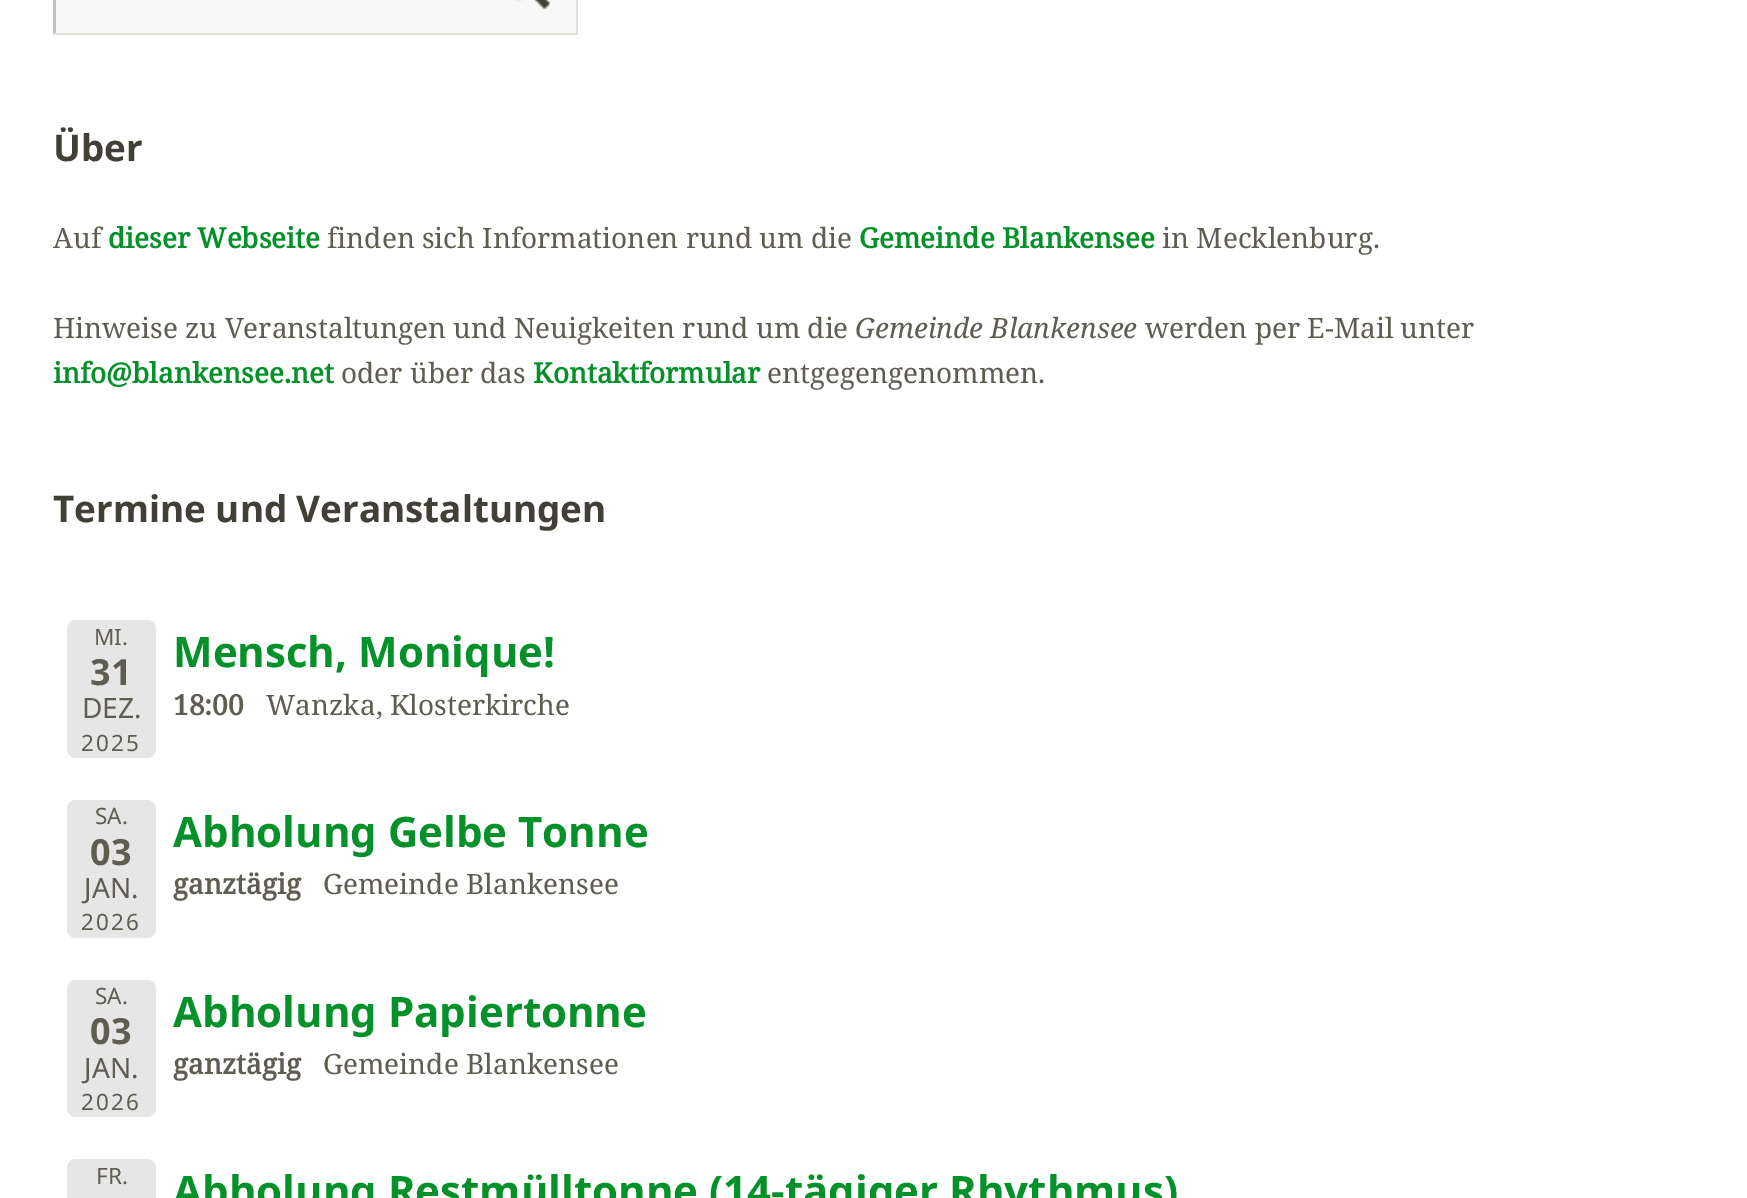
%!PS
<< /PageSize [1747 1198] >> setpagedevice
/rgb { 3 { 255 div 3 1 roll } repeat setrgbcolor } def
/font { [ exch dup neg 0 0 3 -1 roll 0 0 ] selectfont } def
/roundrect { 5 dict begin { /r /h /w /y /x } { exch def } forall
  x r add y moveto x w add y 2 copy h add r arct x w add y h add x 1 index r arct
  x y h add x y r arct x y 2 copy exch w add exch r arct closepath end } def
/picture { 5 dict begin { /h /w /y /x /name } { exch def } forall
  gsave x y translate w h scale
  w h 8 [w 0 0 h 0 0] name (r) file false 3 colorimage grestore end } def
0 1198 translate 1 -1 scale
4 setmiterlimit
255 255 255 rgb
0 0 1747 1198 rectfill
248 248 248 rgb
56 0 520 33 rectfill
gsave
53 0 523 33 rectclip
194 194 194 rgb
-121 -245 moveto 749 -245 lineto 749 206 lineto -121 206 lineto closepath 56 -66 moveto 579 -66 lineto 579 38 lineto 56 38 lineto closepath eofill
grestore
227 224 216 rgb
576 0 2 35 rectfill
53 33 525 2 rectfill
(img/1.rgb) 515 0 35 9 picture
230 230 230 rgb
67 620 89 138 9 roundrect fill
67 800 89 138 9 roundrect fill
67 980 89 137 9 roundrect fill
67 1159 89 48 9 roundrect fill
/NotoSans-Bold 36.75 font
66 63 55 rgb
53 161 moveto (Über) show
/NotoSerif-Regular 28 font
95 92 82 rgb
53 248 moveto (Auf) show
/NotoSerif-Bold 28 font
5 145 41 rgb
108 248 moveto (dieser Webseite) show
/NotoSerif-Regular 28 font
95 92 82 rgb
327 248 moveto (finden sich Informationen rund um die) show
/NotoSerif-Bold 28 font
5 145 41 rgb
859 248 moveto (Gemeinde Blankensee) show
/NotoSerif-Regular 28 font
95 92 82 rgb
1162 248 moveto (in Mecklenburg.) show
53 338 moveto (Hinweise zu Veranstaltungen und Neuigkeiten rund um die) show
/NotoSerif-Italic 28 font
855 338 moveto (Gemeinde Blankensee) show
/NotoSerif-Regular 28 font
1145 338 moveto (werden per E-Mail unter) show
/NotoSerif-Bold 28 font
5 145 41 rgb
53 383 moveto (info@blankensee.net) show
/NotoSerif-Regular 28 font
95 92 82 rgb
341 383 moveto (oder über das) show
/NotoSerif-Bold 28 font
5 145 41 rgb
533 383 moveto (Kontaktformular) show
/NotoSerif-Regular 28 font
95 92 82 rgb
767 383 moveto (entgegengenommen.) show
/NotoSans-Bold 36.75 font
66 63 55 rgb
53 522 moveto (Termine und Veranstaltungen) show
/NotoSans-Regular 22.5 font
95 92 82 rgb
94 645 moveto (MI.) show
/NotoSans-Bold 36 font
90 685 moveto (31) show
/NotoSans-Regular 28 font
82 718 moveto (DEZ.) show
/NotoSans-Regular 22.5 font
81 751 moveto 2 0 (2025) ashow
/NotoSans-Bold 42 font
5 145 41 rgb
173 667 moveto (Mensch, Monique!) show
/NotoSerif-Bold 28 font
95 92 82 rgb
173 715 moveto (18:00) show
/NotoSerif-Regular 28 font
266 715 moveto (Wanzka, Klosterkirche) show
/NotoSans-Regular 22.5 font
95 824 moveto (SA.) show
/NotoSans-Bold 36 font
90 865 moveto (03) show
/NotoSans-Regular 28 font
84 898 moveto (JAN.) show
/NotoSans-Regular 22.5 font
81 930 moveto 2 0 (2026) ashow
/NotoSans-Bold 42 font
5 145 41 rgb
173 847 moveto (Abholung Gelbe Tonne) show
/NotoSerif-Bold 28 font
95 92 82 rgb
173 894 moveto (ganztägig) show
/NotoSerif-Regular 28 font
323 894 moveto (Gemeinde Blankensee) show
/NotoSans-Regular 22.5 font
95 1004 moveto (SA.) show
/NotoSans-Bold 36 font
90 1044 moveto (03) show
/NotoSans-Regular 28 font
84 1078 moveto (JAN.) show
/NotoSans-Regular 22.5 font
81 1110 moveto 2 0 (2026) ashow
/NotoSans-Bold 42 font
5 145 41 rgb
173 1027 moveto (Abholung Papiertonne) show
/NotoSerif-Bold 28 font
95 92 82 rgb
173 1074 moveto (ganztägig) show
/NotoSerif-Regular 28 font
323 1074 moveto (Gemeinde Blankensee) show
/NotoSans-Regular 22.5 font
96 1184 moveto (FR.) show
/NotoSans-Bold 42 font
5 145 41 rgb
173 1206 moveto (Abholung Restmülltonne \(14-tägiger Rhythmus\)) show
showpage
